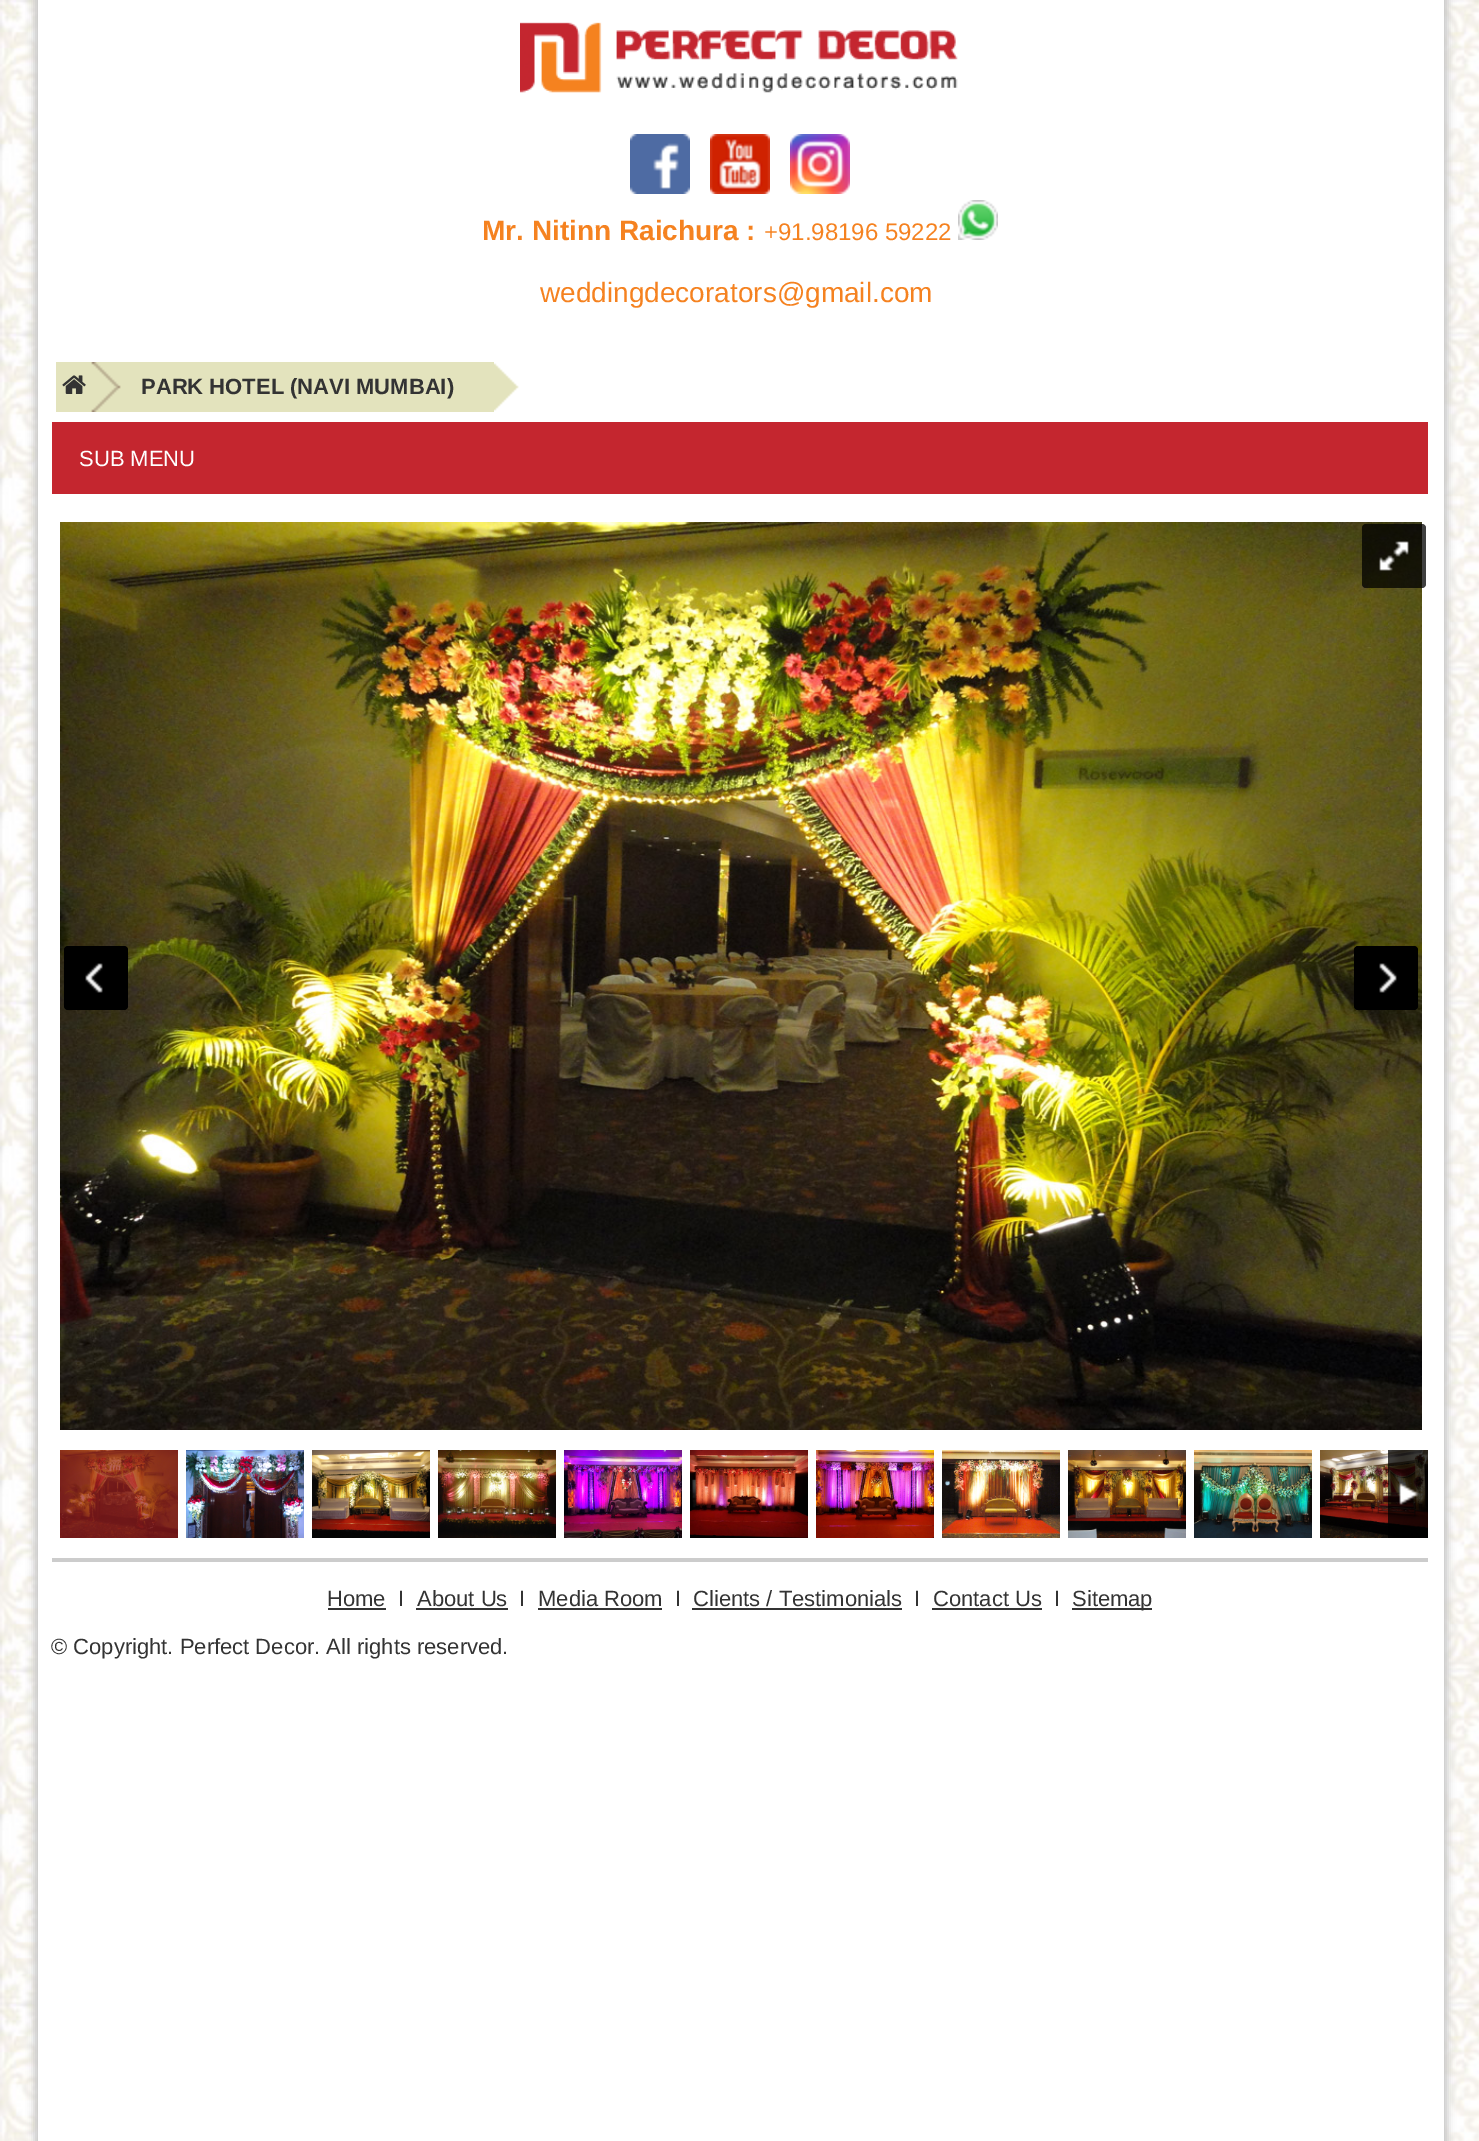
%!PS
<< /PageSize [1479 2141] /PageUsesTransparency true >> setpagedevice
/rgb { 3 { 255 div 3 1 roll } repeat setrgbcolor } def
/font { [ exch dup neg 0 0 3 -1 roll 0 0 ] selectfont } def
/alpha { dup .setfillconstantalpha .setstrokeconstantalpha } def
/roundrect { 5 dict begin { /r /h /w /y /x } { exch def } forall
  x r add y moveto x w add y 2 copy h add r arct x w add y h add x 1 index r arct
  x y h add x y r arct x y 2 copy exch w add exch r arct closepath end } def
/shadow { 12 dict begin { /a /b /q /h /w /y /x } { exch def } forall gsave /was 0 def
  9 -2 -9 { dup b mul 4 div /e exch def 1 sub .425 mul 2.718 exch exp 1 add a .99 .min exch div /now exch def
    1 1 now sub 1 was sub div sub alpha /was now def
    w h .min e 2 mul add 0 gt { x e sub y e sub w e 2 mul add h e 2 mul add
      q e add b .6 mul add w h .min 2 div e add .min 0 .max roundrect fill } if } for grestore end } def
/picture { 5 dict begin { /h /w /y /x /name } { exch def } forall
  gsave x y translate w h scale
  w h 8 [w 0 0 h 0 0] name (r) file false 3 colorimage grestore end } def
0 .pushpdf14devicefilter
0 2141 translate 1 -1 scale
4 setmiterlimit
255 255 255 rgb
0 0 1479 2141 rectfill
(img/1.rgb) 0 0 1479 2141 picture
200 200 200 rgb
34 -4 1414 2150 0 4 1 shadow
255 255 255 rgb
38 0 1406 2141 rectfill
(img/2.rgb) 520 22 438 71 picture
(img/3.rgb) 630 134 60 60 picture
(img/4.rgb) 710 134 60 60 picture
(img/5.rgb) 790 134 60 60 picture
(img/6.rgb) 958 200 40 40 picture
(img/7.rgb) 56 362 76 50 picture
(img/8.rgb) 62 375 24 19 picture
227 227 189 rgb
132 362 362 50 rectfill
(img/9.rgb) 494 363 25 48 picture
196 38 47 rgb
52 422 1376 72 rectfill
(img/10.rgb) 60 522 1362 908 picture
0.75 alpha
0 0 0 rgb
1362 524 64 64 4 roundrect fill
1 alpha
(img/11.rgb) 1379 541 30 30 picture
64 946 64 64 4 roundrect fill
(img/12.rgb) 85 963 18 30 picture
1354 946 64 64 4 roundrect fill
(img/13.rgb) 1379 963 18 30 picture
152 27 30 rgb
60 1450 118 88 rectfill
(img/14.rgb) 60 1450 118 88 picture
(img/15.rgb) 186 1450 118 88 picture
(img/16.rgb) 312 1450 118 88 picture
(img/17.rgb) 438 1450 118 88 picture
(img/18.rgb) 564 1450 118 88 picture
(img/19.rgb) 690 1450 118 88 picture
(img/20.rgb) 816 1450 118 88 picture
(img/21.rgb) 942 1450 118 88 picture
(img/22.rgb) 1068 1450 118 88 picture
(img/23.rgb) 1194 1450 118 88 picture
(img/24.rgb) 1320 1450 108 88 picture
0.75 alpha
0 0 0 rgb
1388 1450 40 88 rectfill
1 alpha
(img/25.rgb) 1399 1483 20 22 picture
[
  [52 1558 1376 4 204 204 204]
  [328 1608 58 2 51 51 51]
  [416 1608 92 2 51 51 51]
  [538 1608 124 2 51 51 51]
  [692 1608 210 2 51 51 51]
  [932 1608 110 2 51 51 51]
  [1072 1608 80 2 51 51 51]
] { aload pop rgb rectfill } forall
/LiberationSans-Bold 28 font
245 130 32 rgb
482 240 moveto (Mr. Nitinn Raichura :) show
/LiberationSans-Regular 24 font
764 240 moveto (+91.98196 59222) show
/LiberationSans-Regular 28 font
540 302 moveto (weddingdecorators@gmail.com) show
/LiberationSans-Bold 22 font
51 51 51 rgb
141 394 moveto (PARK HOTEL \(NAVI MUMBAI\)) show
/LiberationSans-Regular 22 font
255 255 255 rgb
79 466 moveto (SUB MENU) show
51 51 51 rgb
[
  [(Home) 327 1606]
  [(I) 398 1606]
  [(About Us) 417 1606]
  [(I) 519 1606]
  [(Media Room) 538 1606]
  [(I) 675 1606]
  [(Clients / Testimonials) 693 1606]
  [(I) 914 1606]
  [(Contact Us) 933 1606]
  [(I) 1054 1606]
  [(Sitemap) 1072 1606]
  [(© Copyright. Perfect Decor. All rights reserved.) 51 1654]
] { aload pop moveto show } forall
.poppdf14devicefilter showpage
